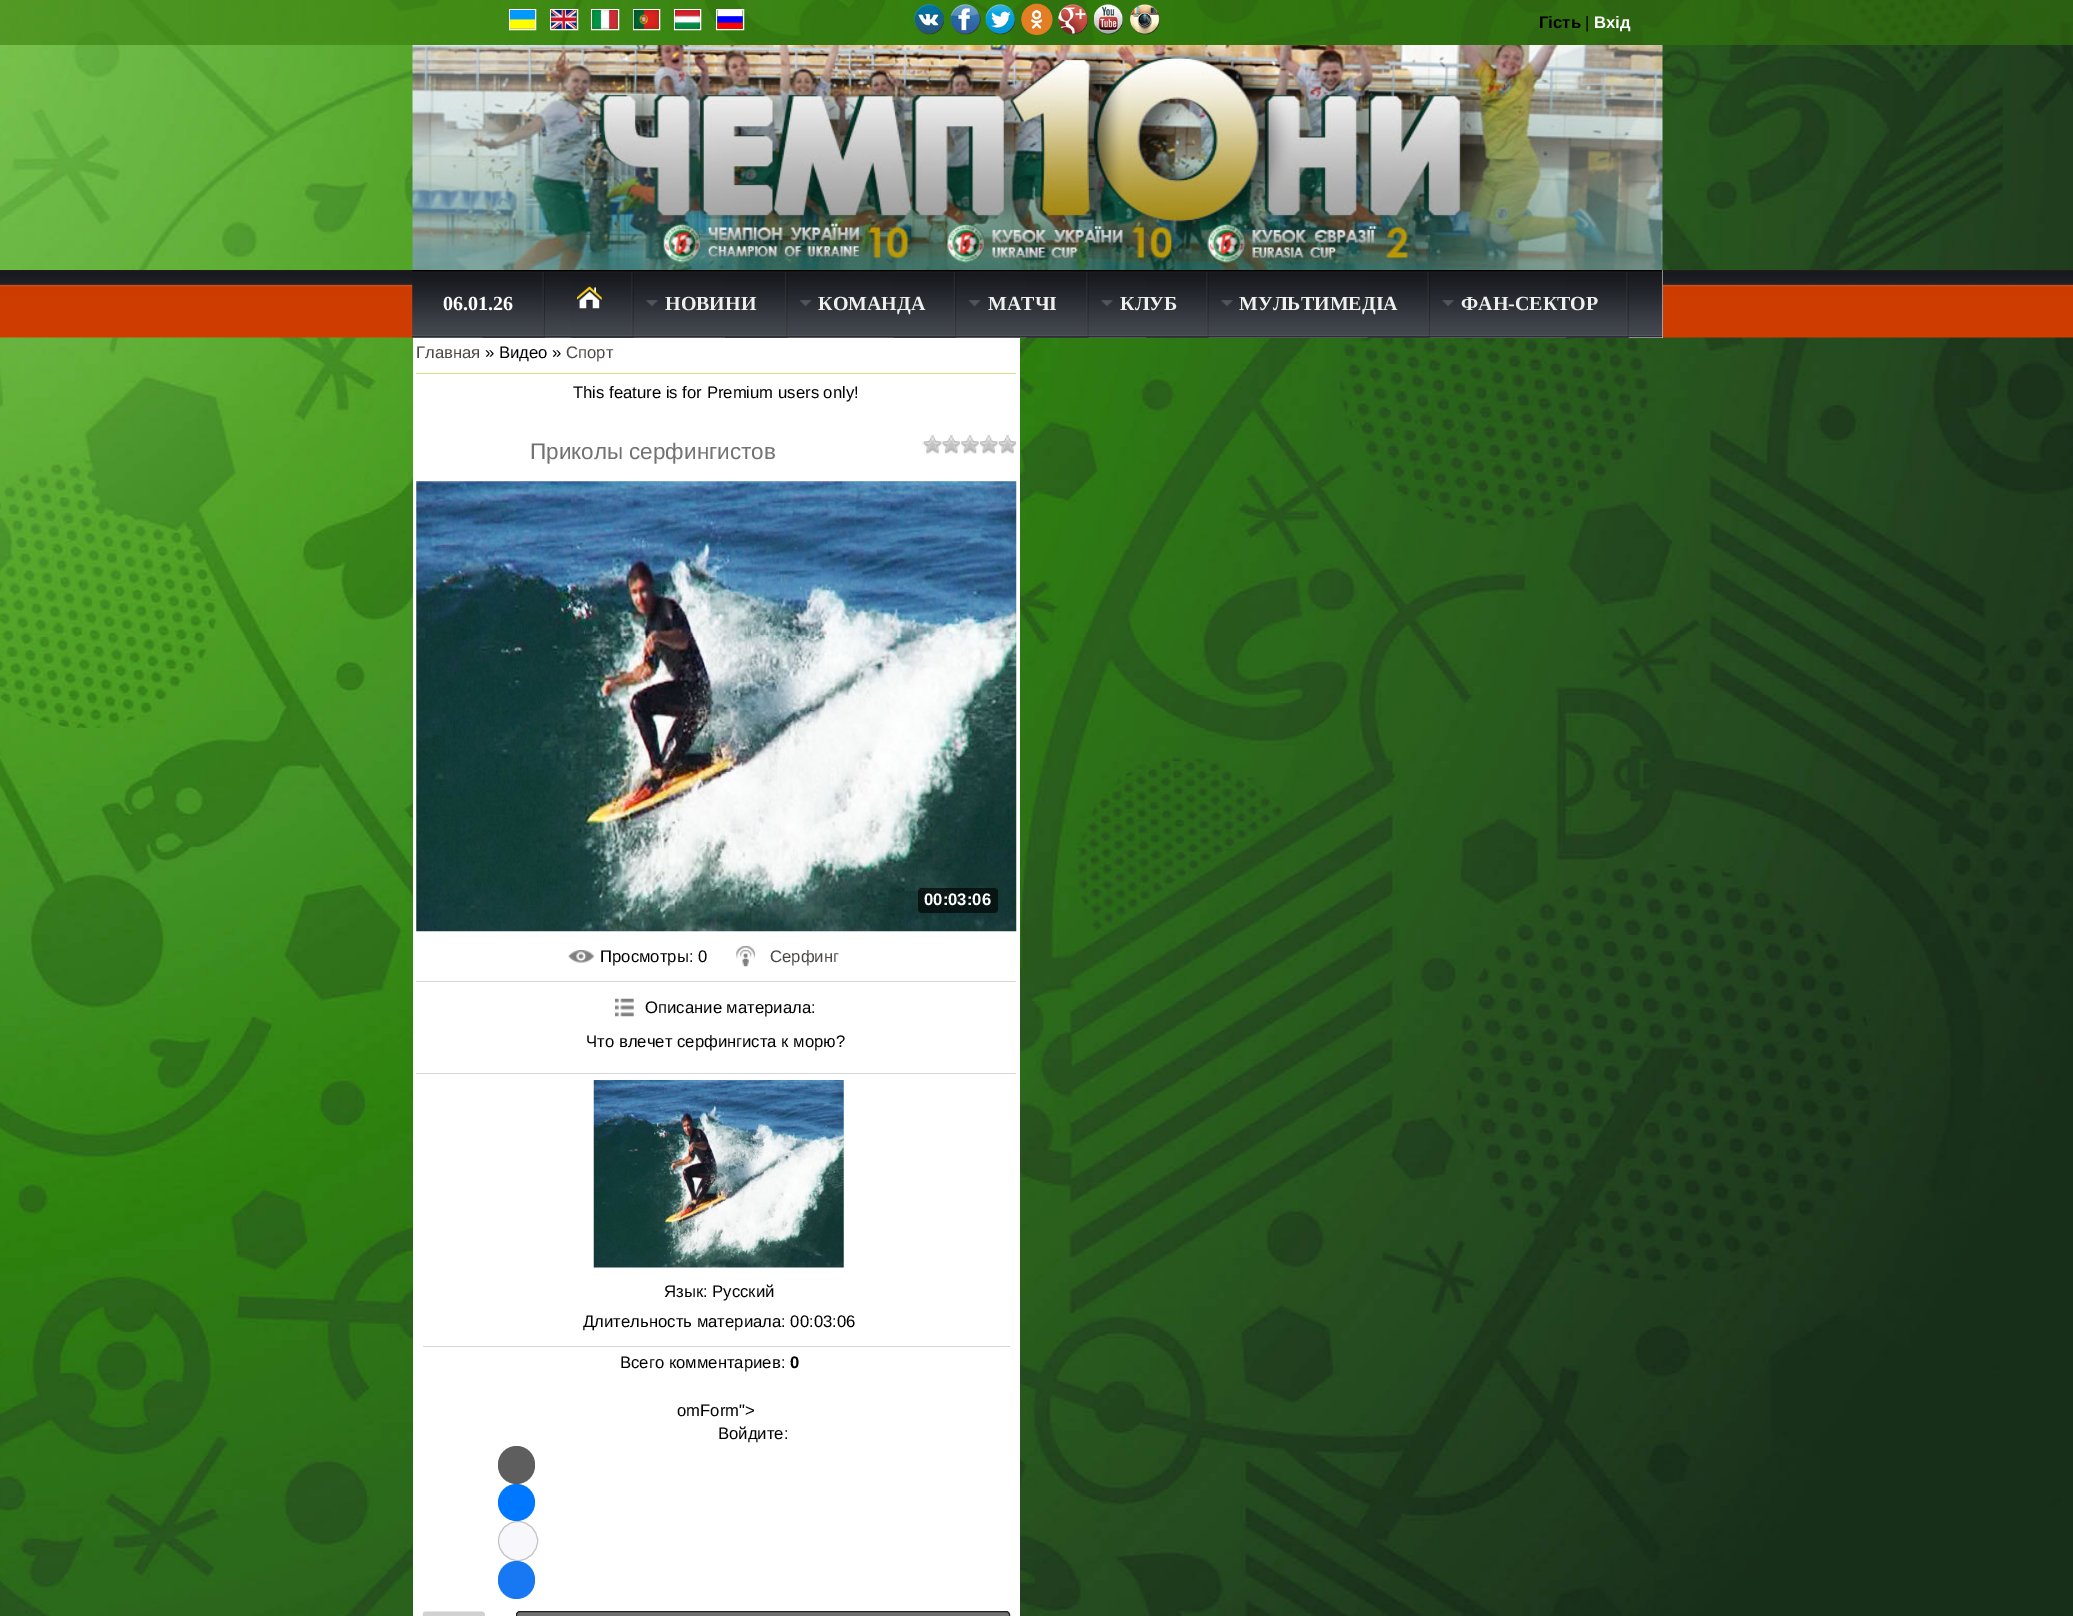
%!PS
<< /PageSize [2073 1616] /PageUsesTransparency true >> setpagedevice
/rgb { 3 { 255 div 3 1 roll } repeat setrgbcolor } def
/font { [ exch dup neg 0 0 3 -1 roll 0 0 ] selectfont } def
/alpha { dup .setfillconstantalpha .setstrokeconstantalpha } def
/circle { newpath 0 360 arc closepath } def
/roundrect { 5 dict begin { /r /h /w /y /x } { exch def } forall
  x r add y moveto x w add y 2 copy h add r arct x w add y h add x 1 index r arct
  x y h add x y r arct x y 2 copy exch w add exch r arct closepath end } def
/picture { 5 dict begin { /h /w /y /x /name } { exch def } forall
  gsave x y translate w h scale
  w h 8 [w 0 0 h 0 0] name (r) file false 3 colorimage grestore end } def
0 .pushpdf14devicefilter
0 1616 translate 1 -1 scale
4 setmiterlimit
255 255 255 rgb
0 0 2073 1616 rectfill
(img/1.rgb) 0 0 2073 1616 picture
0.56 alpha
52 121 7 rgb
0 0 2073 45 rectfill
1 alpha
255 255 255 rgb
509.5 9.5 26 20 rectstroke
550.5 9.5 27 20 rectstroke
591.5 9.5 27 20 rectstroke
633.5 9.5 26 20 rectstroke
674.5 9.5 26 20 rectstroke
716.5 9.5 27 20 rectstroke
(img/2.rgb) 510 10 25 19 picture
(img/3.rgb) 551 10 26 19 picture
(img/4.rgb) 592 10 26 19 picture
(img/5.rgb) 633 10 26 19 picture
(img/6.rgb) 675 10 25 19 picture
(img/7.rgb) 717 10 26 19 picture
(img/8.rgb) 914 4 30 31 picture
(img/9.rgb) 950 4 31 31 picture
(img/10.rgb) 985 4 30 31 picture
(img/11.rgb) 1021 3 32 32 picture
(img/12.rgb) 1058 4 30 31 picture
(img/13.rgb) 1094 4 29 31 picture
(img/14.rgb) 1130 4 30 31 picture
(img/15.rgb) 412 45 1251 225 picture
(img/16.rgb) 0 270 2073 68 picture
413 270 1250 68 rectfill
(img/17.rgb) 412 270 1251 68 picture
(img/18.rgb) 412 270 133 68 picture
(img/19.rgb) 482 272 63 66 picture
(img/20.rgb) 545 337 89 1 picture
(img/21.rgb) 571 272 63 66 picture
(img/22.rgb) 577 286 25 23 picture
(img/23.rgb) 633 300 155 38 picture
(img/24.rgb) 725 272 63 66 picture
(img/25.rgb) 787 300 170 38 picture
(img/26.rgb) 893 272 64 66 picture
(img/27.rgb) 956 300 133 38 picture
(img/28.rgb) 1026 272 63 66 picture
(img/29.rgb) 1088 300 121 38 picture
(img/28.rgb) 1146 272 63 66 picture
(img/30.rgb) 1208 300 222 38 picture
(img/31.rgb) 1367 272 63 66 picture
(img/32.rgb) 1430 300 199 38 picture
(img/28.rgb) 1566 272 63 66 picture
413 338 607 1278 rectfill
214 227 125 rgb
416 373 600 1 rectfill
(img/33.rgb) 922 435 95 19 picture
(img/34.rgb) 416 481 601 451 picture
0.63 alpha
0 0 0 rgb
918 888 80 25 4 roundrect fill
1 alpha
(img/35.rgb) 568 950 26 13 picture
(img/36.rgb) 736 946 20 21 picture
214 214 214 rgb
416 981 600 1 rectfill
(img/37.rgb) 615 998 19 19 picture
416 1073 600 1 rectfill
(img/38.rgb) 593 1080 251 188 picture
423 1346 587 1 rectfill
94 94 94 rgb
498 1446 37 38 18.5 roundrect fill
0 119 255 rgb
516.5 1502.5 18.5 circle fill
248 248 252 rgb
518 1541 19.5 circle gsave fill grestore
196 196 196 rgb
stroke
24 119 242 rgb
498 1561 37 38 18.5 roundrect fill
(img/39.rgb) 422 1611 63 5 picture
112 112 112 rgb
516.5 1611.5 493 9 3.5 roundrect gsave fill grestore
31 31 31 rgb
stroke
/LiberationSans-Bold 16.7 font
0 0 0 rgb
1539 28 moveto (Гість) show
/LiberationSans-Regular 16.7 font
1585 28 moveto (|) show
/LiberationSans-Bold 16.7 font
255 255 255 rgb
1594 28 moveto (Вхід) show
/LiberationSerif-Bold 20 font
443 310 moveto (06.01.26) show
239 239 239 rgb
[
  [(НОВИНИ) 665 310]
  [(КОМАНДА) 818 310]
  [(МАТЧІ) 988 310]
  [(КЛУБ) 1120 310]
  [(МУЛЬТИМЕДІА) 1239 310]
  [(ФАН-СЕКТОР) 1461 310]
] { aload pop moveto show } forall
/LiberationSans-Regular 16.7 font
75 71 68 rgb
416 358 moveto (Главная) show
0 0 0 rgb
485 358 moveto (» Видео ») show
75 71 68 rgb
566 358 moveto (Спорт) show
0 0 0 rgb
573 398 moveto (This feature is for Premium users only!) show
/LiberationSans-Regular 22.5 font
114 114 114 rgb
530 459 moveto (Приколы серфингистов) show
/LiberationSans-Bold 16.7 font
255 255 255 rgb
924 905 moveto (00:03:06) show
/LiberationSans-Regular 16.7 font
0 0 0 rgb
600 962 moveto (Просмотры: 0) show
75 71 68 rgb
770 962 moveto (Серфинг) show
0 0 0 rgb
[
  [(Описание материала:) 645 1013]
  [(Что влечет серфингиста к морю?) 586 1047]
  [(Язык: Русский) 664 1297]
  [(Длительность материала: 00:03:06) 583 1327]
  [(Всего комментариев:) 620 1368]
] { aload pop moveto show } forall
/LiberationSans-Bold 16.7 font
790 1368 moveto (0) show
/LiberationSans-Regular 16.7 font
677 1416 moveto (omForm">) show
718 1439 moveto (Войдите:) show
.poppdf14devicefilter showpage
